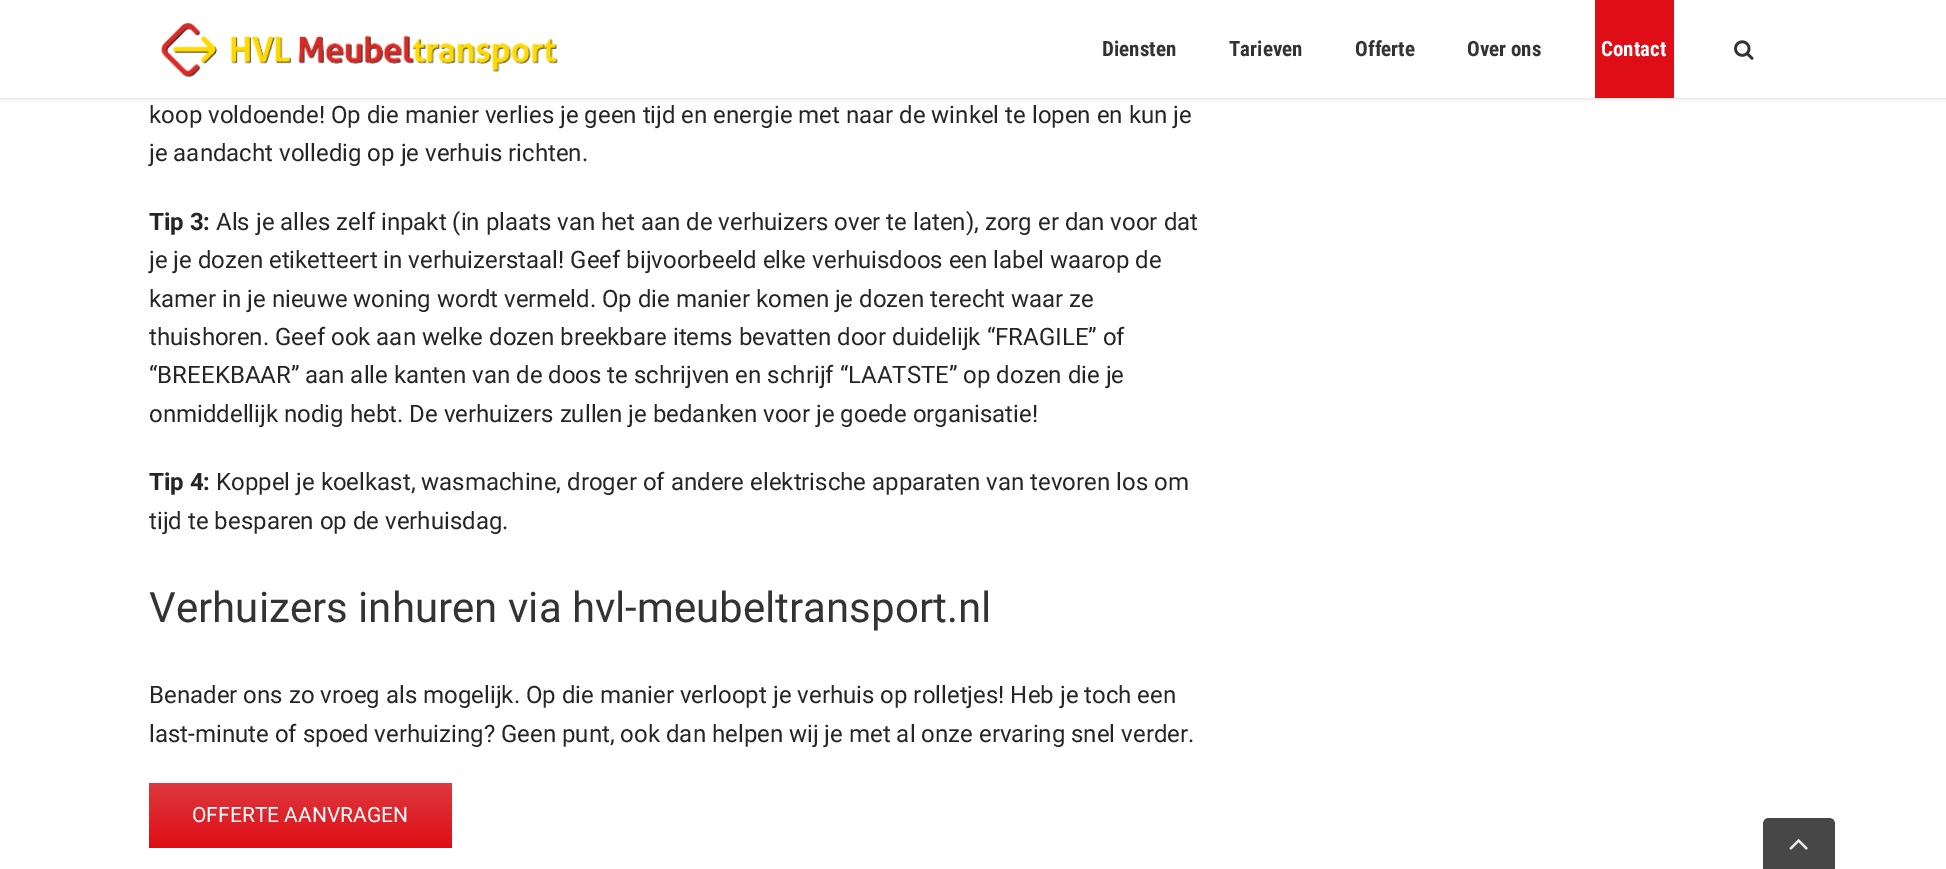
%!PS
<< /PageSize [1946 869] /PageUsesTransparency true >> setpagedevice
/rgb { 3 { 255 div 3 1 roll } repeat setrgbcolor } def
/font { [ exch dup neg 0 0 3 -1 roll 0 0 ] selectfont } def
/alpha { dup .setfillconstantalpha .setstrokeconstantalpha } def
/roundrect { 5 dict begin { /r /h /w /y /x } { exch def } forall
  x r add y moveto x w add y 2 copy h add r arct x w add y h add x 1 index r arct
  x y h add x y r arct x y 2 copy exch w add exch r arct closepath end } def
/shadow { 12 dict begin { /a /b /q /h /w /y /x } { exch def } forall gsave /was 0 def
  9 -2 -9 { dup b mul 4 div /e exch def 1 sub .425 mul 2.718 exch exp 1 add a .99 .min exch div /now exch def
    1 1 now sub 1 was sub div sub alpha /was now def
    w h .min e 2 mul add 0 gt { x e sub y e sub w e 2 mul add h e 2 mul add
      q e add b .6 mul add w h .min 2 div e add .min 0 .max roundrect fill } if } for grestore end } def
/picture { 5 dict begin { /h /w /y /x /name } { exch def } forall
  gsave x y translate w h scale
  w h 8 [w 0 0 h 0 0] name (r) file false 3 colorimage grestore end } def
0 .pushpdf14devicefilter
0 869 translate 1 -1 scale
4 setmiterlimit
255 255 255 rgb
0 0 1946 869 rectfill
0 0 0 rgb
0 2 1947 97 0 2 0.12 shadow
255 255 255 rgb
0 0 1946 98 rectfill
(img/1.rgb) 161 22 397 56 picture
223 13 21 rgb
1595 0 79 98 rectfill
(img/2.rgb) 1734 40 20 20 picture
gsave 149 783 303 65 3 roundrect clip newpath
<< /ShadingType 2 /ColorSpace /DeviceRGB /Coords [300 848 300 783] /Extend [true true] /Function << /FunctionType 2 /Domain [0 1] /C0 [0.875 0.051 0.082] /C1 [0.867 0.224 0.247] /N 1 >> >> shfill grestore
71 71 71 rgb
1769 818 moveto 1829 818 lineto 1832.5 818 1835 820.5 1835 824 curveto 1835 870 lineto 1763 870 lineto 1763 824 lineto 1763 820.5 1765.5 818 1769 818 curveto closepath fill
(img/3.rgb) 1789 839 19 11 picture
/RobotoCondensed-Bold 21 font
51 51 51 rgb
[
  [(Diensten) 1102 56]
  [(Tarieven) 1229 56]
  [(Offerte) 1355 56]
  [(Over ons) 1467 56]
] { aload pop moveto show } forall
255 255 255 rgb
1601 56 moveto (Contact) show
/Roboto-Regular 24 font
37 37 37 rgb
149 123 moveto (koop voldoende! Op die manier verlies je geen tijd en energie met naar de winkel te lopen en kun je) show
149 161 moveto (je aandacht volledig op je verhuis richten.) show
/Roboto-Bold 24 font
149 230 moveto (Tip 3:) show
/Roboto-Regular 24 font
[
  [(Als je alles zelf inpakt \(in plaats van het aan de verhuizers over te laten\), zorg er dan voor dat) 216 230]
  [(je je dozen etiketteert in verhuizerstaal! Geef bijvoorbeeld elke verhuisdoos een label waarop de) 149 268]
  [(kamer in je nieuwe woning wordt vermeld. Op die manier komen je dozen terecht waar ze) 149 307]
  [(thuishoren. Geef ook aan welke dozen breekbare items bevatten door duidelijk “FRAGILE” of) 149 345]
  [(“BREEKBAAR” aan alle kanten van de doos te schrijven en schrijf “LAATSTE” op dozen die je) 149 383]
  [(onmiddellijk nodig hebt. De verhuizers zullen je bedanken voor je goede organisatie!) 149 422]
] { aload pop moveto show } forall
/Roboto-Bold 24 font
149 490 moveto (Tip 4:) show
/Roboto-Regular 24 font
216 490 moveto (Koppel je koelkast, wasmachine, droger of andere elektrische apparaten van tevoren los om) show
149 529 moveto (tijd te besparen op de verhuisdag.) show
/Roboto-Regular 42 font
51 51 51 rgb
149 622 moveto (Verhuizers inhuren via hvl-meubeltransport.nl) show
/Roboto-Regular 24 font
37 37 37 rgb
149 703 moveto (Benader ons zo vroeg als mogelijk. Op die manier verloopt je verhuis op rolletjes! Heb je toch een) show
149 742 moveto (last-minute of spoed verhuizing? Geen punt, ook dan helpen wij je met al onze ervaring snel verder.) show
/Roboto-Regular 21 font
255 255 255 rgb
192 822 moveto (OFFERTE AANVRAGEN) show
.poppdf14devicefilter showpage
